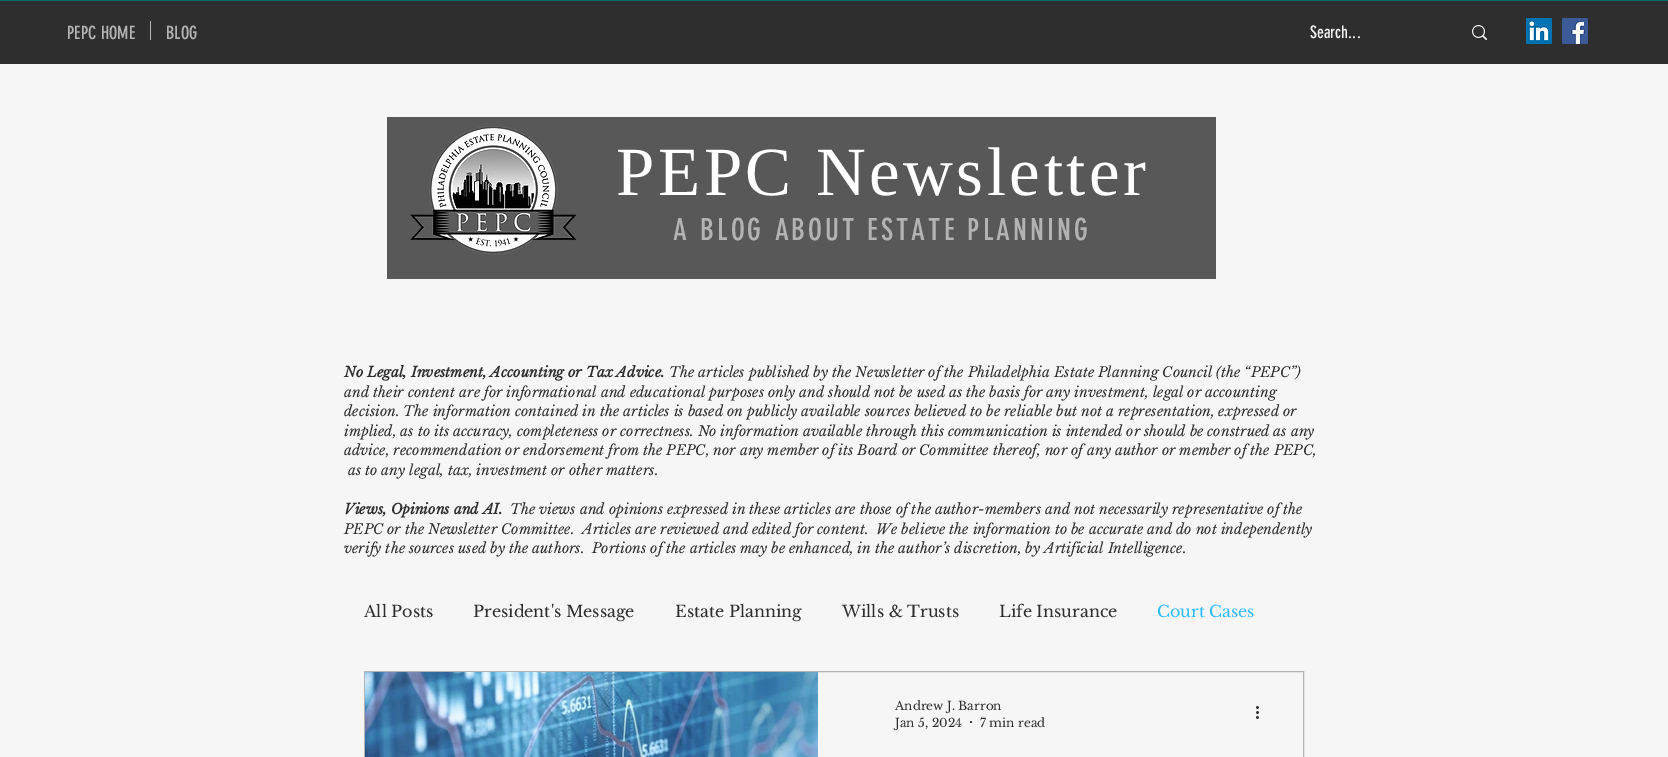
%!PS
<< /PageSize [1668 757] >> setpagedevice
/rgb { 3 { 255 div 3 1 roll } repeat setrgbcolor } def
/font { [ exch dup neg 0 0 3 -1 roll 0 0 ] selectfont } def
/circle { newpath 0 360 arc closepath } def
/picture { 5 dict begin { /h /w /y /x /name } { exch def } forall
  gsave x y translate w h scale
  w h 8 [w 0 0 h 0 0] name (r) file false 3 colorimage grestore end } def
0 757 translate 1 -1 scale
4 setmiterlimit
246 246 246 rgb
0 0 1668 757 rectfill
[
  [0 0 1668 1 0 108 109]
  [0 1 1668 63 47 46 46]
  [150 21 1 19 179 179 179]
] { aload pop rgb rectfill } forall
(img/1.rgb) 1472 25 15 15 picture
(img/2.rgb) 1526 18 26 26 picture
(img/3.rgb) 1562 18 26 26 picture
89 88 88 rgb
387 117 829 162 rectfill
(img/4.rgb) 410 126 167 128 picture
179 179 179 rgb
364.5 671.5 939 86 rectstroke
(img/5.rgb) 365 672 453 85 picture
47 46 46 rgb
971 722 1 circle fill
(img/6.rgb) 1256 706 3 13 picture
/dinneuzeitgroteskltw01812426-Regular 18 font
179 179 179 rgb
67 39 moveto (PEPC HOME) show
166 39 moveto (BLOG) show
/dinneuzeitgroteskltw01812426-Regular 17 font
246 246 246 rgb
1310 38 moveto (Search...) show
/LiberationSerif-Regular 69 font
255 255 255 rgb
616 195 moveto 3.5 0 (PEPC Newsletter) ashow
/dinneuzeitgroteskltw01812426-Regular 30 font
179 179 179 rgb
673 240 moveto 3 0 (A BLOG ABOUT ESTATE PLANNING) ashow
/LibreBaskerville-BoldItalic 14 font
47 46 46 rgb
344 377 moveto (No Legal, Investment, Accounting or Tax Advice.) show
/LibreBaskerville-Italic 14 font
[
  [(The articles published by the Newsletter of the Philadelphia Estate Planning Council \(the “PEPC”\)) 669 377]
  [(and their content are for informational and educational purposes only and should not be used as the basis for any investment, legal or accounting) 344 397]
  [(decision. The information contained in the articles is based on publicly available sources believed to be reliable but not a representation, expressed or) 344 416]
  [(implied, as to its accuracy, completeness or correctness. No information available through this communication is intended or should be construed as any) 344 436]
  [(advice, recommendation or endorsement from the PEPC, nor any member of its Board or Committee thereof, nor of any author or member of the PEPC,) 344 455]
  [(as to any legal, tax, investment or other matters.) 348 475]
] { aload pop moveto show } forall
/LibreBaskerville-BoldItalic 14 font
344 514 moveto (Views, Opinions and AI.) show
/LibreBaskerville-Italic 14 font
[
  [(The views and opinions expressed in these articles are those of the author-members and not necessarily representative of the) 510 514]
  [(PEPC or the Newsletter Committee.  Articles are reviewed and edited for content.  We believe the information to be accurate and do not independently) 344 534]
  [(verify the sources used by the authors.  Portions of the articles may be enhanced, in the author’s discretion, by Artificial Intelligence.) 344 553]
] { aload pop moveto show } forall
/LibreBaskerville-Regular 16 font
[
  [(All Posts) 364 617]
  [(President's Message) 473 617]
  [(Estate Planning) 675 617]
  [(Wills & Trusts) 842 617]
  [(Life Insurance) 999 617]
] { aload pop moveto show } forall
48 189 255 rgb
1157 617 moveto (Court Cases) show
/LibreBaskerville-Regular 12 font
47 46 46 rgb
[
  [(Andrew J. Barron) 895 710]
  [(Jan 5, 2024) 895 727]
  [(7 min read) 980 727]
] { aload pop moveto show } forall
showpage
